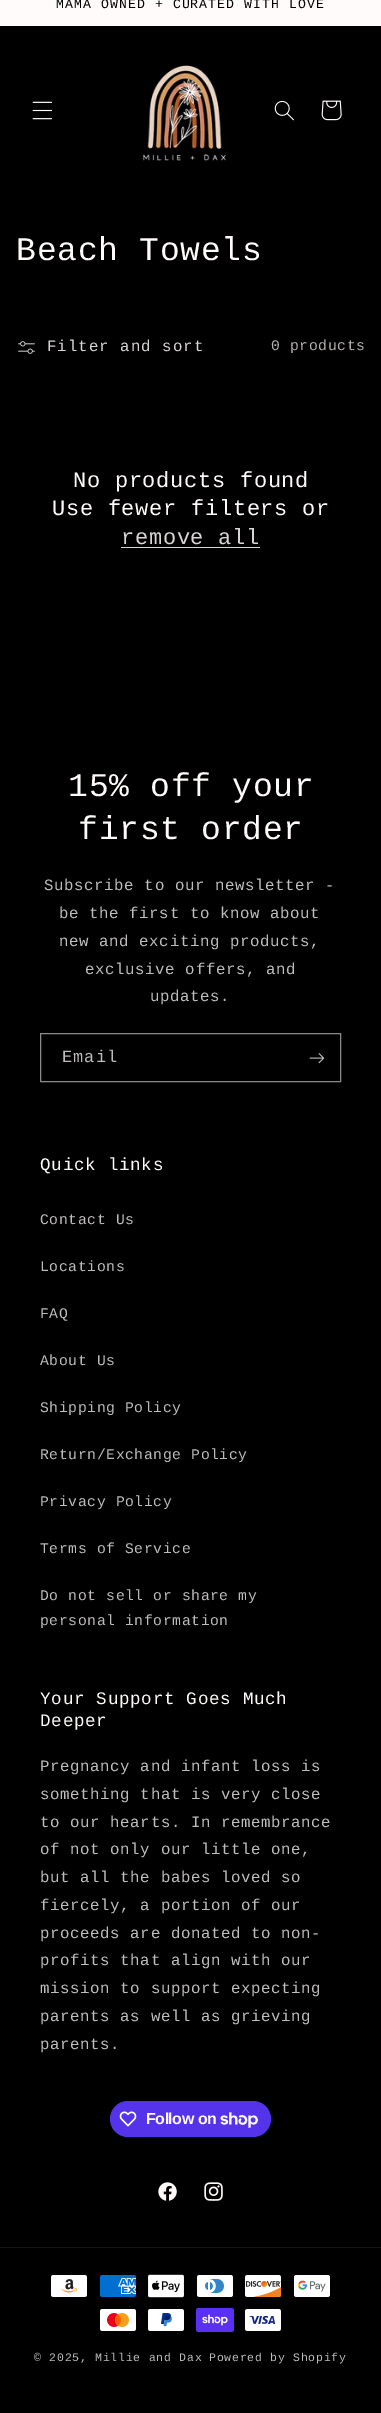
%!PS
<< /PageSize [381 2413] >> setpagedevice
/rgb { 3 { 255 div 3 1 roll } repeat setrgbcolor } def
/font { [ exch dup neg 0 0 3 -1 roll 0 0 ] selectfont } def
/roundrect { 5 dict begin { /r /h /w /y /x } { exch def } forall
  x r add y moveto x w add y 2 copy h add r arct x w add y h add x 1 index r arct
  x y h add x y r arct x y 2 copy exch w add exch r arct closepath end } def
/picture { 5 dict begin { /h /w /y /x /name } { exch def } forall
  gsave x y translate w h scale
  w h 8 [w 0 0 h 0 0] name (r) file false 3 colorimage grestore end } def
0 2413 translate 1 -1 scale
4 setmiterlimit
255 251 250 rgb
0 0 381 2413 rectfill
0 0 0 rgb
0 26 381 705 rectfill
(img/1.rgb) 32 101 20 19 picture
(img/2.rgb) 142 63 84 99 picture
(img/3.rgb) 274 100 20 21 picture
(img/4.rgb) 321 100 21 21 picture
(img/5.rgb) 18 341 17 13 picture
217 213 213 rgb
121 547 139 1 rectfill
0 0 0 rgb
0 731 381 1682 rectfill
140 138 138 rgb
40.5 1033.5 300 48 rectstroke
(img/6.rgb) 309 1053 16 11 picture
84 51 235 rgb
110 2101 161 36 18 roundrect fill
(img/7.rgb) 119 2111 18 16 picture
(img/8.rgb) 220 2112 38 16 picture
(img/9.rgb) 158 2182 19 19 picture
(img/10.rgb) 204 2182 19 19 picture
20 20 20 rgb
0 2247 381 1 rectfill
(img/11.rgb) 51 2275 36 22 picture
(img/12.rgb) 100 2275 36 22 picture
(img/13.rgb) 148 2274 36 24 picture
(img/14.rgb) 197 2275 36 22 picture
(img/15.rgb) 245 2275 37 22 picture
(img/16.rgb) 294 2275 36 22 picture
(img/17.rgb) 100 2309 36 22 picture
(img/18.rgb) 148 2309 36 22 picture
(img/19.rgb) 196 2308 38 24 picture
(img/20.rgb) 245 2309 36 22 picture
/LiberationMono-Regular 13.2 font
0 0 0 rgb
56 8 moveto 1.05 0 (MAMA OWNED + CURATED WITH LOVE) ashow
/LiberationMono-Regular 33 font
255 251 250 rgb
16 260 moveto 0.7 0 (Beach Towels) ashow
/LiberationMono-Regular 15.75 font
217 213 213 rgb
47 351 moveto 1.05 0 (Filter and sort) ashow
/LiberationMono-Regular 14.75 font
179 176 175 rgb
271 350 moveto 0.6 0 (0 products) ashow
/LiberationMono-Regular 22 font
255 251 250 rgb
73 487 moveto 0.7 0 (No products found) ashow
52 515 moveto 0.7 0 (Use fewer filters or) ashow
217 213 213 rgb
121 544 moveto 0.7 0 (remove all) ashow
/LiberationMono-Regular 33 font
255 251 250 rgb
68 796 moveto 0.7 0 (15% off your) ashow
78 839 moveto 0.7 0 (first order) ashow
/LiberationMono-Regular 15.75 font
191 188 188 rgb
44 890 moveto 0.6 0 (Subscribe to our newsletter -) ashow
59 918 moveto 0.6 0 (be the first to know about) ashow
59 946 moveto 0.6 0 (new and exciting products,) ashow
85 974 moveto 0.6 0 (exclusive offers, and) ashow
150 1001 moveto 0.6 0 (updates.) ashow
/LiberationMono-Regular 17 font
62 1062 moveto 1.05 0 (Email) ashow
/LiberationMono-Regular 17.6 font
255 251 250 rgb
40 1170 moveto 0.7 0 (Quick links) ashow
/LiberationMono-Regular 14.75 font
191 188 188 rgb
40 1224 moveto 0.6 0 (Contact Us) ashow
40 1271 moveto 0.6 0 (Locations) ashow
40 1318 moveto 0.6 0 (FAQ) ashow
40 1365 moveto 0.6 0 (About Us) ashow
40 1412 moveto 0.6 0 (Shipping Policy) ashow
40 1459 moveto 0.6 0 (Return/Exchange Policy) ashow
40 1506 moveto 0.6 0 (Privacy Policy) ashow
40 1553 moveto 0.6 0 (Terms of Service) ashow
40 1600 moveto 0.6 0 (Do not sell or share my) ashow
40 1625 moveto 0.6 0 (personal information) ashow
/LiberationMono-Regular 17.6 font
255 251 250 rgb
40 1704 moveto 0.7 0 (Your Support Goes Much) ashow
40 1726 moveto 0.7 0 (Deeper) ashow
/LiberationMono-Regular 15.75 font
191 188 188 rgb
40 1771 moveto 0.6 0 (Pregnancy and infant loss is) ashow
40 1799 moveto 0.6 0 (something that is very close) ashow
40 1827 moveto 0.6 0 (to our hearts. In remembrance) ashow
40 1854 moveto 0.6 0 (of not only our little one,) ashow
40 1882 moveto 0.6 0 (but all the babes loved so) ashow
40 1910 moveto 0.6 0 (fiercely, a portion of our) ashow
40 1938 moveto 0.6 0 (proceeds are donated to non-) ashow
40 1965 moveto 0.6 0 (profits that align with our) ashow
40 1993 moveto 0.6 0 (mission to support expecting) ashow
40 2021 moveto 0.6 0 (parents as well as grieving) ashow
40 2049 moveto 0.6 0 (parents.) ashow
/LiberationSans-Bold 16 font
255 251 250 rgb
146 2124 moveto -0.5 0 (Follow on) ashow
/LiberationMono-Regular 11.5 font
191 188 188 rgb
34 2361 moveto 0.75 0 (© 2025, Millie and Dax) ashow
209 2361 moveto 0.75 0 (Powered by Shopify) ashow
showpage
